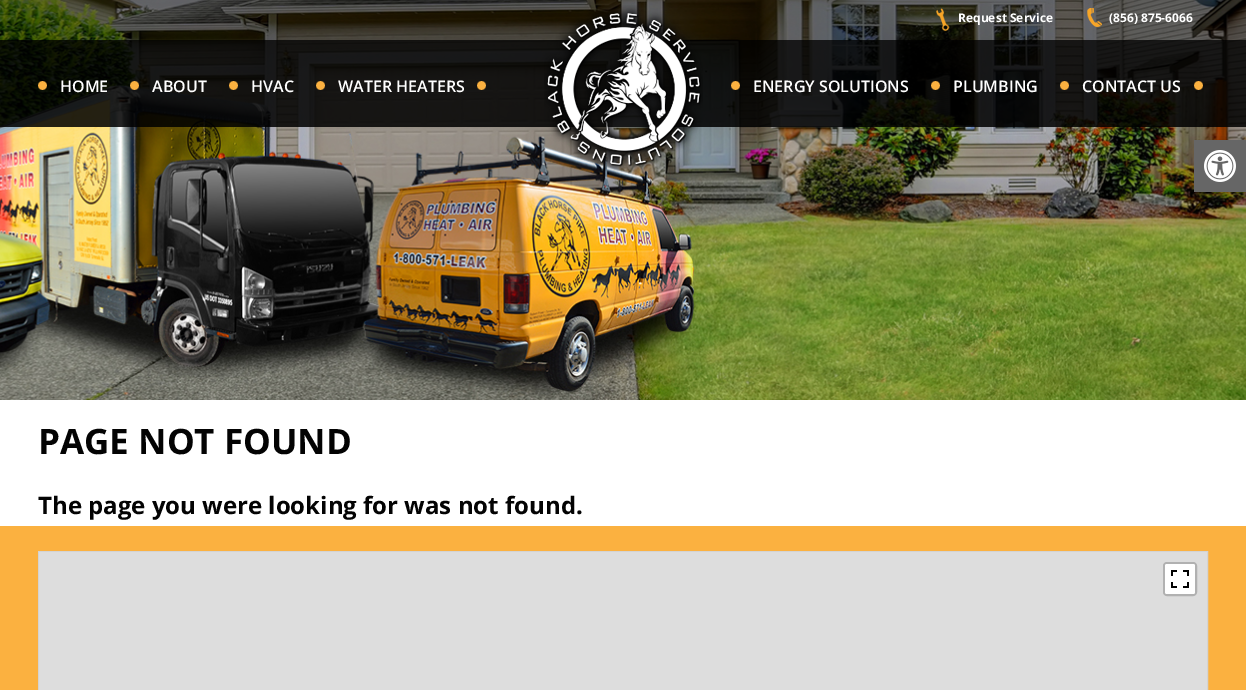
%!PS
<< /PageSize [1246 690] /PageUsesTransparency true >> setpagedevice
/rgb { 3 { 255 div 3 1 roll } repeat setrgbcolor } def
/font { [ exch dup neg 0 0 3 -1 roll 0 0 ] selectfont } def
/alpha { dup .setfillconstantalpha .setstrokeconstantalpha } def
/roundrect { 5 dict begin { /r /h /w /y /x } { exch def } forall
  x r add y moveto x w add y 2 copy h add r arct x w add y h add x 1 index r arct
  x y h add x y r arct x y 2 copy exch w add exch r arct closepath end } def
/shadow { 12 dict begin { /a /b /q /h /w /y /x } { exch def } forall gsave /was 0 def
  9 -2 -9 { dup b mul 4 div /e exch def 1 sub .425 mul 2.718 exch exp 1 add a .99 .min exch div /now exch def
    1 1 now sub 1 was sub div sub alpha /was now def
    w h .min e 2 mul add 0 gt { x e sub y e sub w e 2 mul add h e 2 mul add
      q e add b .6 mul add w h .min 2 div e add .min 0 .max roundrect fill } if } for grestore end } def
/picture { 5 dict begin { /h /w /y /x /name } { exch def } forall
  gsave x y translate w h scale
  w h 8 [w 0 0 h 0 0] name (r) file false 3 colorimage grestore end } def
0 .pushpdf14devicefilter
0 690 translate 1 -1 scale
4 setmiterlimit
251 177 64 rgb
0 0 1246 690 rectfill
(img/12.rgb) 0 0 1246 400 picture
0 0 0 rgb
1194 140 52 52 0 5 0.1 shadow
0.43 alpha
0 0 1246 127 rectfill
0.75 alpha
0 40 1246 87 rectfill
1 alpha
(img/1.rgb) 544 5 159 169 picture
(img/2.rgb) 936 8 14 23 picture
(img/3.rgb) 1087 8 15 19 picture
(img/4.rgb) 38 81 9 9 picture
(img/5.rgb) 130 81 9 9 picture
(img/6.rgb) 229 81 9 9 picture
(img/7.rgb) 477 81 9 9 picture
(img/8.rgb) 316 81 9 9 picture
(img/9.rgb) 731 81 9 9 picture
(img/10.rgb) 931 81 9 9 picture
(img/11.rgb) 1060 81 143 9 picture
255 255 255 rgb
0 400 1246 126 rectfill
211 211 211 rgb
38.5 551.5 1169 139 rectstroke
221 221 221 rgb
39 552 1168 138 rectfill
177 177 177 rgb
2 setlinewidth
1164 563 32 32 3 roundrect stroke
255 255 255 rgb
1165 564 30 30 2 roundrect fill
(img/13.rgb) 1171 570 18 18 picture
102 102 102 rgb
1194 140 52 52 rectfill
(img/14.rgb) 1204 150 32 32 picture
/OpenSans-Bold 12 font
255 255 255 rgb
958 22 moveto (Request Service) show
1109 22 moveto (\(856\) 875-6066) show
/OpenSans-SemiBold 16 font
[
  [(HOME) 60 92]
  [(ABOUT) 152 92]
  [(HVAC) 251 92]
  [(WATER HEATERS) 338 92]
  [(ENERGY SOLUTIONS) 753 92]
  [(PLUMBING) 953 92]
  [(CONTACT US) 1082 92]
] { aload pop moveto show } forall
/OpenSans-Bold 35 font
3 3 3 rgb
38 454 moveto (PAGE NOT FOUND) show
/OpenSans-Bold 24 font
38 514 moveto (The page you were looking for was not found.) show
.poppdf14devicefilter showpage
